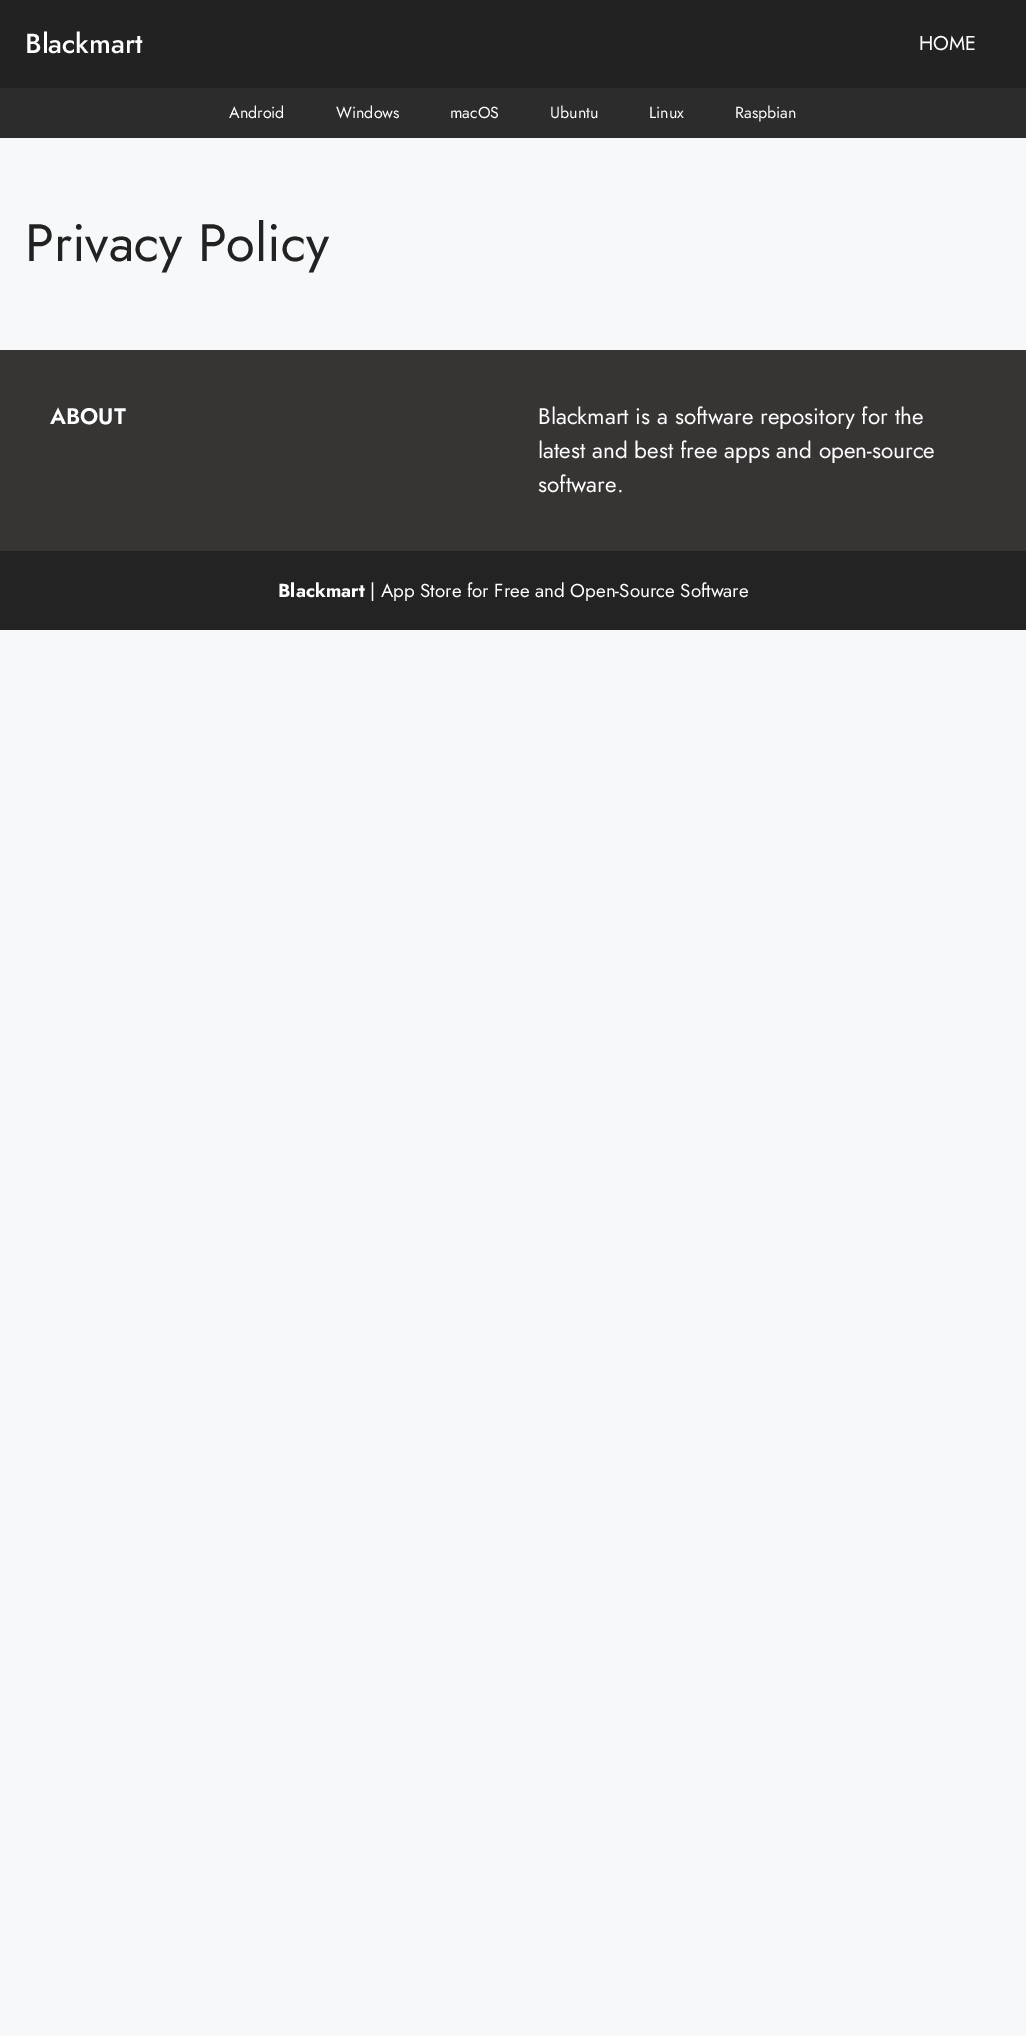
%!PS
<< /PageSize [1026 2036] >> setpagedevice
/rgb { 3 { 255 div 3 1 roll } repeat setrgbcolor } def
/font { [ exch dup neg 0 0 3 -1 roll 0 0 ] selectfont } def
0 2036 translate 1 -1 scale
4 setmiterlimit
247 248 249 rgb
0 0 1026 2036 rectfill
[
  [0 0 1026 88 34 34 34]
  [0 88 1026 50 44 44 44]
  [0 350 1026 201 55 52 52]
  [0 551 1026 79 35 35 35]
] { aload pop rgb rectfill } forall
/Jost-Medium 27.5 font
255 255 255 rgb
25 53 moveto (Blackmart) show
/Jost-Regular 20 font
919 50 moveto (HOME) show
/Jost-Regular 16 font
[
  [(Android) 229 118]
  [(Windows) 336 118]
  [(macOS) 450 118]
  [(Ubuntu) 550 118]
  [(Linux) 649 118]
  [(Raspbian) 735 118]
] { aload pop moveto show } forall
/Jost-Regular 52.5 font
34 34 34 rgb
25 261 moveto (Privacy Policy) show
/Jost-SemiBold 22.5 font
255 255 255 rgb
50 424 moveto (ABOUT) show
/Jost-Regular 22.5 font
[
  [(Blackmart is a software repository for the) 538 424]
  [(latest and best free apps and open-source) 538 458]
  [(software.) 538 492]
] { aload pop moveto show } forall
/Jost-Bold 18.75 font
278 597 moveto (Blackmart) show
/Jost-Regular 18.75 font
370 597 moveto (| App Store for Free and Open-Source Software) show
showpage
